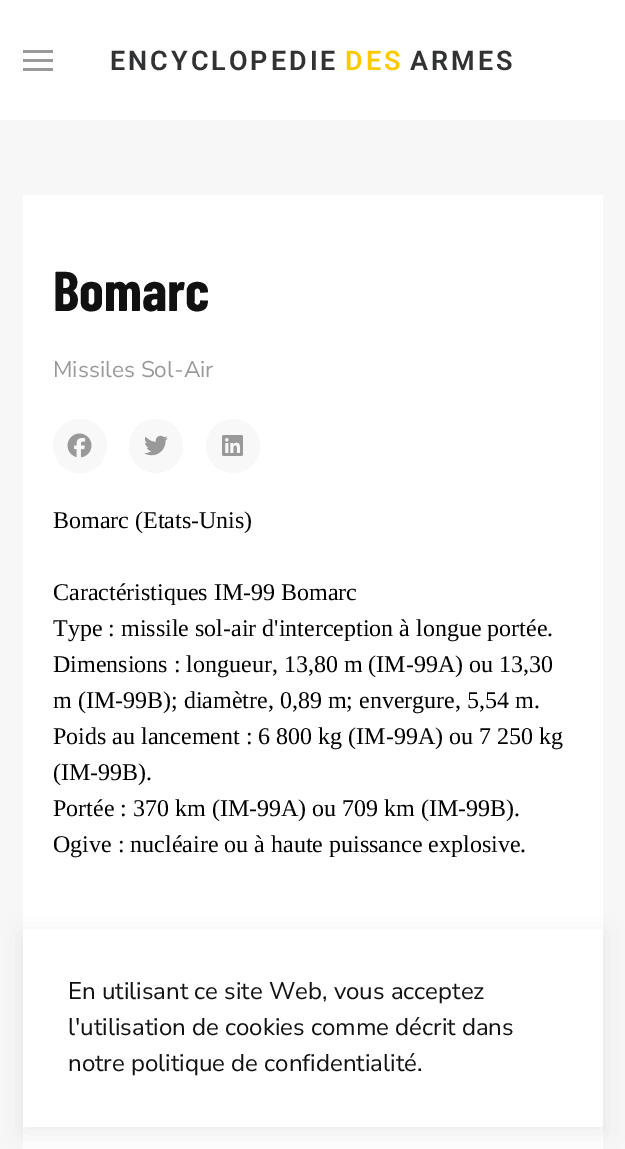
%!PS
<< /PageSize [625 1149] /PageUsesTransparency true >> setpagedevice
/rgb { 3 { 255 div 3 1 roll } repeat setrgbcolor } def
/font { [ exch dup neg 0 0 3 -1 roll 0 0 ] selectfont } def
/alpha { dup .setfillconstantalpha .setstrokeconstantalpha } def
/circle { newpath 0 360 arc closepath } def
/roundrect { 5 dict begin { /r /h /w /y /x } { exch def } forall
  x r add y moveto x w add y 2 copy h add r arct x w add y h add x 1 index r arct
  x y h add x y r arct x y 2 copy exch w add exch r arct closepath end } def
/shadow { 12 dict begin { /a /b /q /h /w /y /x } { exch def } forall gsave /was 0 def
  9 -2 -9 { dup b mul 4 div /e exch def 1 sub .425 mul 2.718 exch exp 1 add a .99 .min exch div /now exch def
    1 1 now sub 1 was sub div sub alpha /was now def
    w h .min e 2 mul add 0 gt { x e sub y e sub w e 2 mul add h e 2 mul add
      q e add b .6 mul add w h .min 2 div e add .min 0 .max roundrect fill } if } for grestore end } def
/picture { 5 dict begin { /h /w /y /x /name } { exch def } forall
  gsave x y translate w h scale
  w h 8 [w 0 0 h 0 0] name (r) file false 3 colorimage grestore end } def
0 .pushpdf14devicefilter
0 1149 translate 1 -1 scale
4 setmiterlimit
255 255 255 rgb
0 0 625 1149 rectfill
[
  [23 50 30 3 153 153 153]
  [23 59 30 3 153 153 153]
  [23 68 30 3 153 153 153]
  [0 120 625 1029 247 247 247]
  [23 195 580 954 255 255 255]
] { aload pop rgb rectfill } forall
248 248 248 rgb
80 446 27 circle fill
(img/1.rgb) 67 433 25 25 picture
156 446 27 circle fill
(img/2.rgb) 144 435 24 21 picture
233 446 27 circle fill
(img/3.rgb) 222 435 21 21 picture
0 0 0 rgb
23 935 580 198 0 11 0.07 shadow
255 255 255 rgb
23 929 580 198 rectfill
/Roboto-SemiBold 27 font
48 50 51 rgb
110 70 moveto 3 0 (ENCYCLOPEDIE) ashow
252 202 3 rgb
345 70 moveto 3 0 (DES) ashow
48 50 51 rgb
410 70 moveto 3 0 (ARMES) ashow
/BarlowCondensed-Bold 56 font
17 17 17 rgb
53 311 moveto (Bomarc) show
/NunitoSans-Regular 22.75 font
153 153 153 rgb
53 377 moveto (Missiles Sol-Air) show
/LiberationSerif-Regular 24 font
0 0 0 rgb
[
  [(Bomarc \(Etats-Unis\)) 53 528]
  [(Caractéristiques IM-99 Bomarc) 53 600]
  [(Type : missile sol-air d'interception à longue portée.) 53 636]
  [(Dimensions : longueur, 13,80 m \(IM-99A\) ou 13,30) 53 672]
  [(m \(IM-99B\); diamètre, 0,89 m; envergure, 5,54 m.) 53 708]
  [(Poids au lancement : 6 800 kg \(IM-99A\) ou 7 250 kg) 53 744]
  [(\(IM-99B\).) 53 780]
  [(Portée : 370 km \(IM-99A\) ou 709 km \(IM-99B\).) 53 816]
  [(Ogive : nucléaire ou à haute puissance explosive.) 53 852]
] { aload pop moveto show } forall
/NunitoSans-Regular 24 font
17 17 17 rgb
[
  [(En utilisant ce site Web, vous acceptez) 68 999]
  [(l'utilisation de cookies comme décrit dans) 68 1035]
  [(notre politique de confidentialité.) 68 1071]
] { aload pop moveto show } forall
.poppdf14devicefilter showpage
